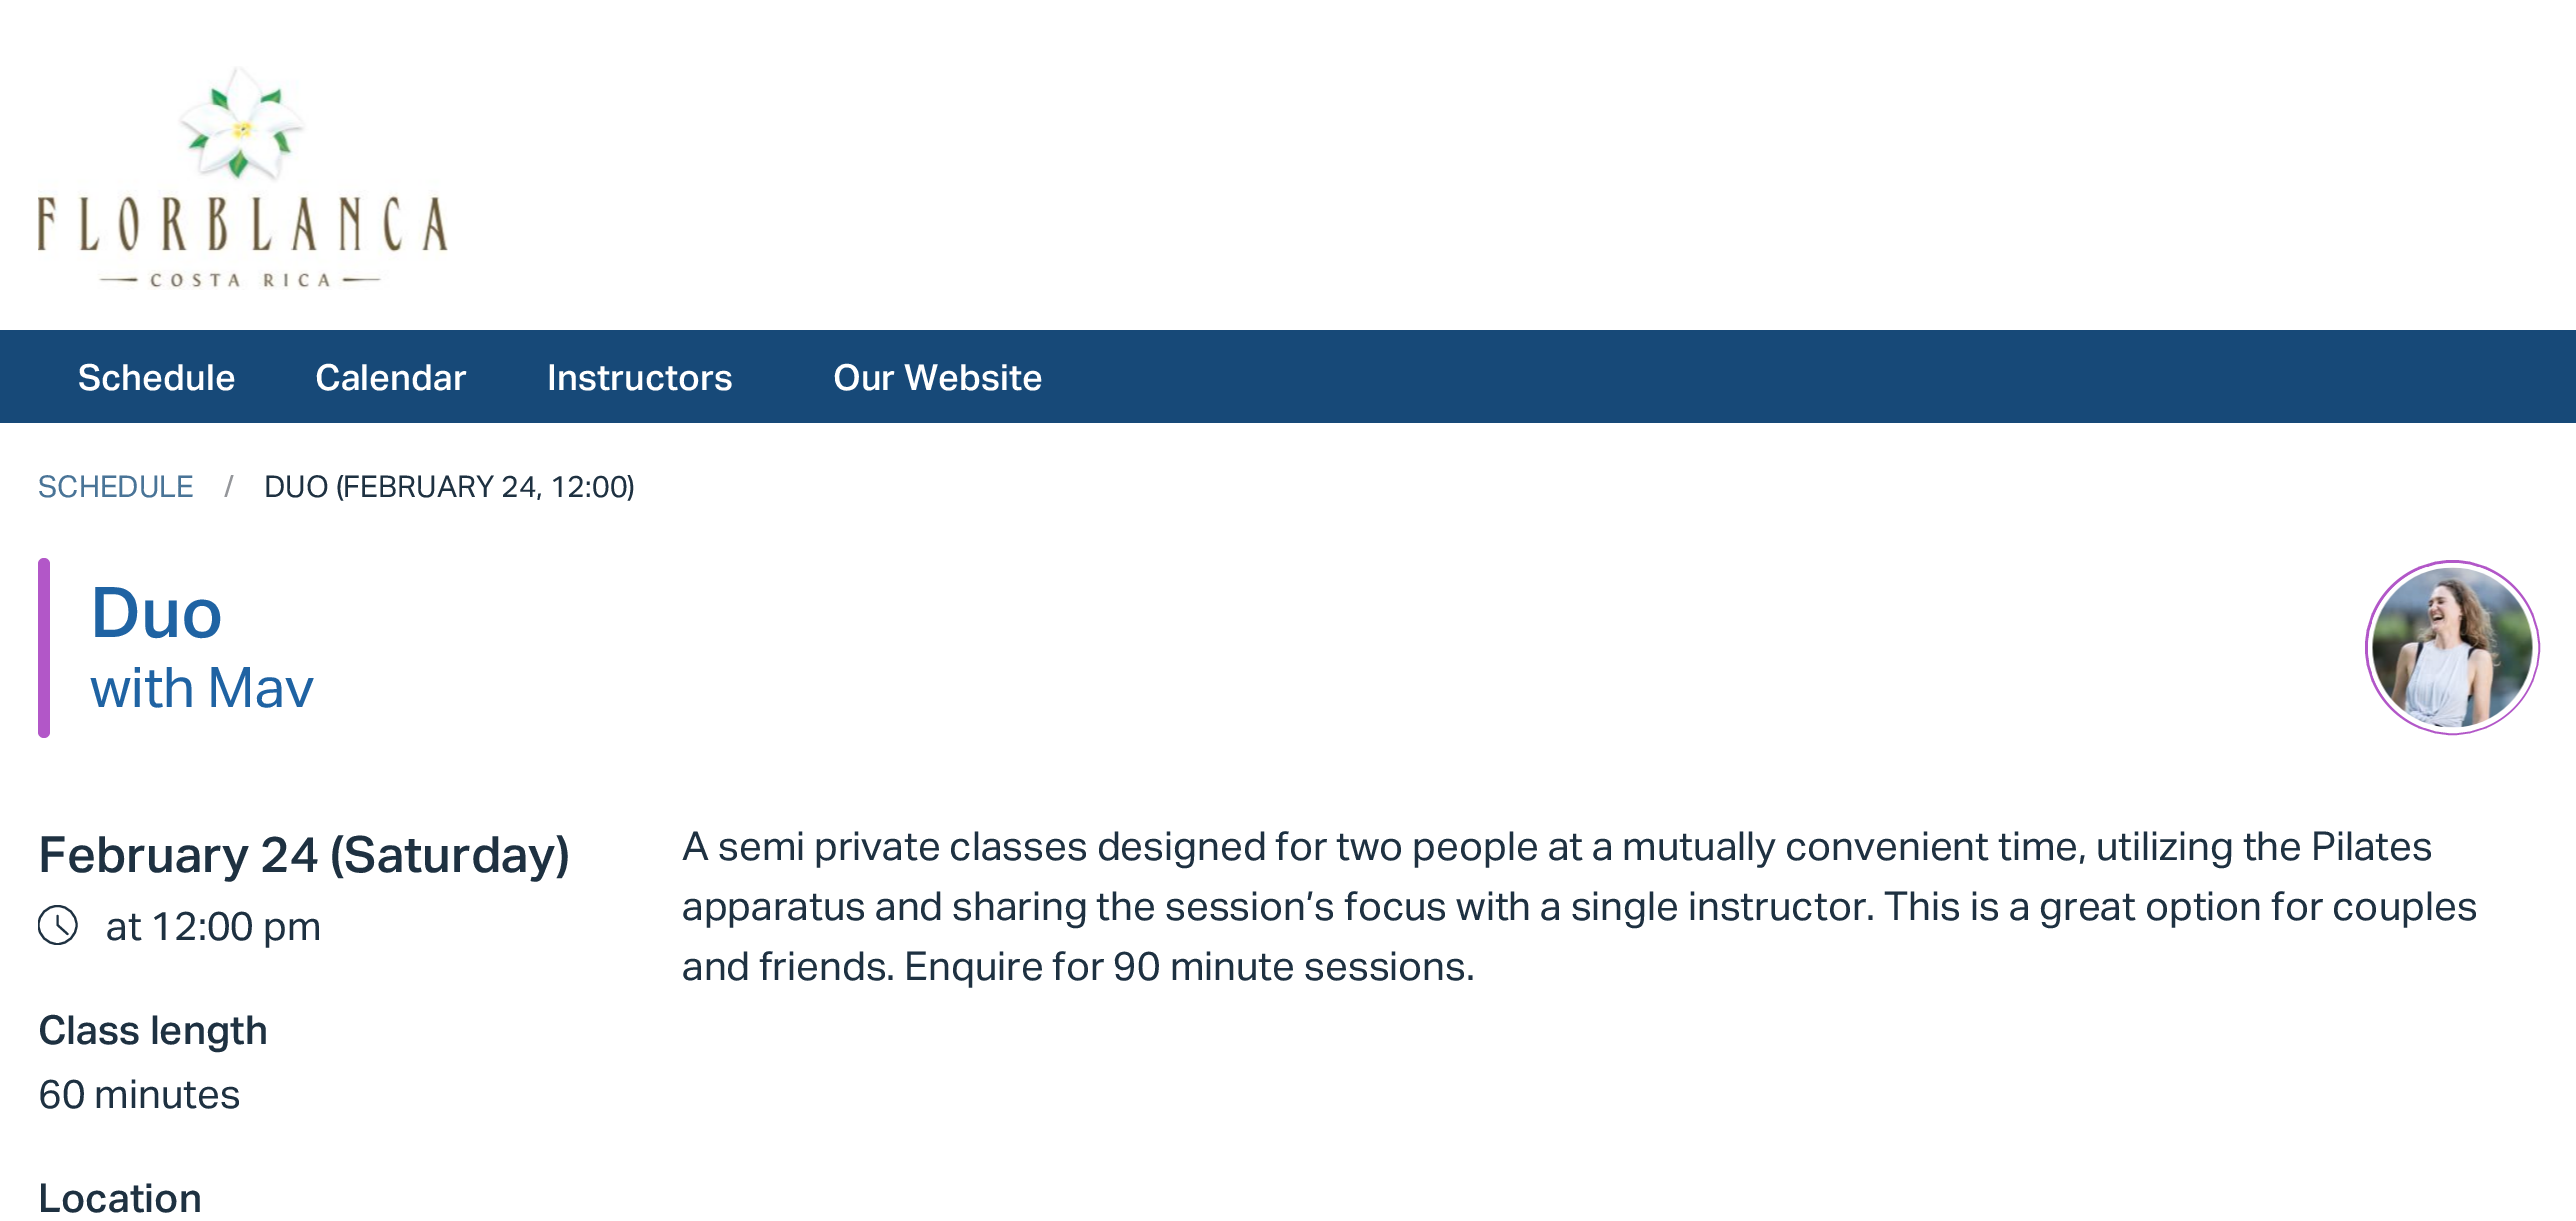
%!PS
<< /PageSize [2576 1221] >> setpagedevice
/rgb { 3 { 255 div 3 1 roll } repeat setrgbcolor } def
/font { [ exch dup neg 0 0 3 -1 roll 0 0 ] selectfont } def
/circle { newpath 0 360 arc closepath } def
/roundrect { 5 dict begin { /r /h /w /y /x } { exch def } forall
  x r add y moveto x w add y 2 copy h add r arct x w add y h add x 1 index r arct
  x y h add x y r arct x y 2 copy exch w add exch r arct closepath end } def
/picture { 5 dict begin { /h /w /y /x /name } { exch def } forall
  gsave x y translate w h scale
  w h 8 [w 0 0 h 0 0] name (r) file false 3 colorimage grestore end } def
0 1221 translate 1 -1 scale
4 setmiterlimit
255 255 255 rgb
0 0 2576 1221 rectfill
(img/1.rgb) 38 66 410 224 picture
23 73 120 rgb
0 330 2576 93 rectfill
178 87 200 rgb
38 558 12 180 6 roundrect fill
3 setlinewidth
2452.5 647.5 86 circle stroke
255 255 255 rgb
5 setlinewidth
2453 648 82.5 circle stroke
(img/2.rgb) 2372 567 161 161 picture
gsave
38 905 40 40 rectclip
30 49 65 rgb
2.1 setlinewidth
57.5 925 19 circle stroke
grestore
30 49 65 rgb
2.1 setlinewidth
1 setlinecap
1 setlinejoin
57.5 916 moveto 57.5 925 lineto 67.5 934 lineto stroke
/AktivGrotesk-Medium 36 font
255 255 255 rgb
[
  [(Schedule) 78 390]
  [(Calendar) 315 390]
  [(Instructors) 547 390]
  [(Our Website) 833 390]
] { aload pop moveto show } forall
/AktivGrotesk-Regular 30 font
73 116 151 rgb
38 497 moveto (SCHEDULE) show
149 151 155 rgb
224 497 moveto (/) show
30 49 65 rgb
264 497 moveto (DUO \(FEBRUARY 24, 12:00\)) show
/AktivGrotesk-Medium 70 font
31 99 163 rgb
90 637 moveto (Duo) show
/AktivGrotesk-Regular 56 font
90 707 moveto (with Mav) show
/AktivGrotesk-Medium 50 font
30 49 65 rgb
38 872 moveto (February 24 \(Saturday\)) show
/AktivGrotesk-Regular 40 font
106 940 moveto (at 12:00 pm) show
/AktivGrotesk-Medium 40 font
38 1044 moveto (Class length) show
/AktivGrotesk-Regular 40 font
38 1108 moveto (60 minutes) show
/AktivGrotesk-Medium 40 font
38 1212 moveto (Location) show
/AktivGrotesk-Regular 40 font
[
  [(A semi private classes designed for two people at a mutually convenient time, utilizing the Pilates) 682 860]
  [(apparatus and sharing the session’s focus with a single instructor. This is a great option for couples) 682 920]
  [(and friends. Enquire for 90 minute sessions.) 682 980]
] { aload pop moveto show } forall
showpage
